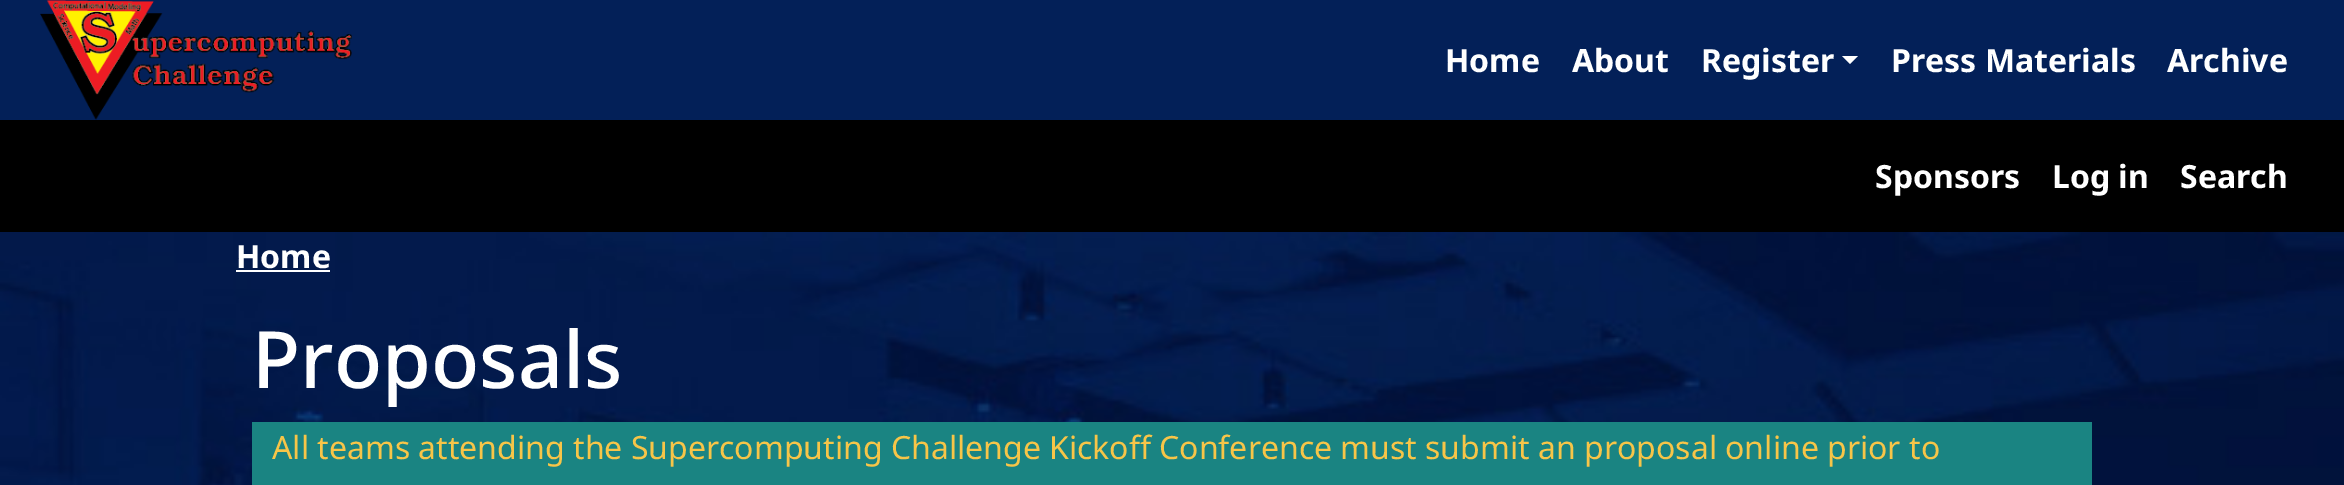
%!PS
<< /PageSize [2344 485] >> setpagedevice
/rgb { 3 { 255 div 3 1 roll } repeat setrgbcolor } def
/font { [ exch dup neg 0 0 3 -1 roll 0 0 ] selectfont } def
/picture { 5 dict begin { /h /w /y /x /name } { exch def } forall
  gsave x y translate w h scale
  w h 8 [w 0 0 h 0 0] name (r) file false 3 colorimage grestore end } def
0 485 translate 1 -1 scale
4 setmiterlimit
0 0 0 rgb
0 0 2344 485 rectfill
3 32 88 rgb
0 0 2344 120 rectfill
(img/1.rgb) 40 0 312 120 picture
255 255 255 rgb
1842 56 moveto 1858 56 lineto 1850 64 lineto closepath fill
(img/2.rgb) 0 232 2344 253 picture
236 270 94 2 rectfill
26 132 130 rgb
252 422 1840 63 rectfill
/NotoSans-Bold 32 font
255 255 255 rgb
[
  [(Home) 1445 72]
  [(About) 1572 72]
  [(Register) 1701 72]
  [(Press Materials) 1891 72]
  [(Archive) 2167 72]
  [(Sponsors) 1875 188]
  [(Log in) 2052 188]
  [(Search) 2180 188]
  [(Home) 236 268]
] { aload pop moveto show } forall
/NotoSans-Medium 79 font
252 388 moveto (Proposals) show
/NotoSans-Regular 32 font
247 197 72 rgb
272 459 moveto (All teams attending the Supercomputing Challenge Kickoff Conference must submit an proposal online prior to) show
showpage
